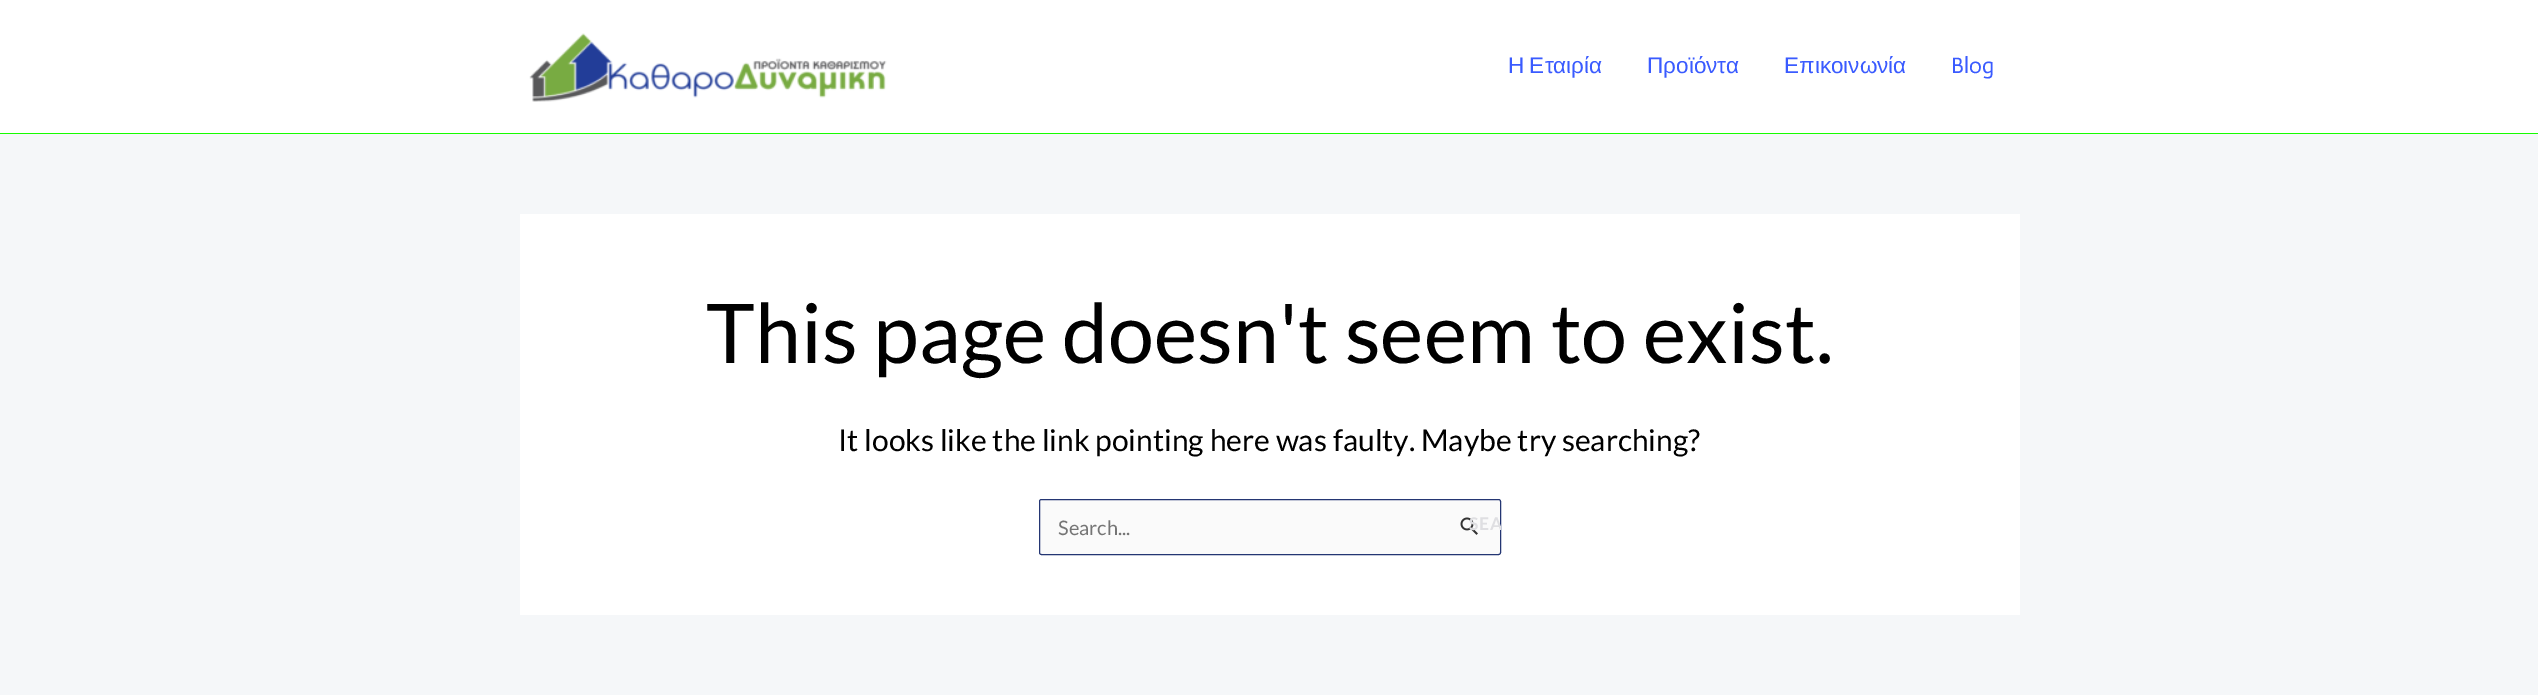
%!PS
<< /PageSize [2538 700] >> setpagedevice
/rgb { 3 { 255 div 3 1 roll } repeat setrgbcolor } def
/font { [ exch dup neg 0 0 3 -1 roll 0 0 ] selectfont } def
/roundrect { 5 dict begin { /r /h /w /y /x } { exch def } forall
  x r add y moveto x w add y 2 copy h add r arct x w add y h add x 1 index r arct
  x y h add x y r arct x y 2 copy exch w add exch r arct closepath end } def
/picture { 5 dict begin { /h /w /y /x /name } { exch def } forall
  gsave x y translate w h scale
  w h 8 [w 0 0 h 0 0] name (r) file false 3 colorimage grestore end } def
0 700 translate 1 -1 scale
4 setmiterlimit
245 247 249 rgb
0 0 2538 700 rectfill
255 255 255 rgb
0 0 2538 133 rectfill
21 253 0 rgb
0 133 2538 1 rectfill
(img/1.rgb) 529 33 358 69 picture
255 255 255 rgb
520 214 1500 401 rectfill
250 250 250 rgb
1039.5 499.5 461 55 2 roundrect gsave fill grestore
36 54 115 rgb
stroke
(img/2.rgb) 1460 517 18 18 picture
255 255 255 rgb
0 695 2538 5 rectfill
/LiberationSans-Regular 22.5 font
58 91 255 rgb
1508 73 moveto -1 0 32 (Η Εταιρία) widthshow
1647 73 moveto (Προϊόντα) show
1784 73 moveto (Επικοινωνία) show
/Actor-Regular 22.5 font
1951 73 moveto (Blog) show
/Lato-Regular 82.5 font
0 0 0 rgb
706 363 moveto (This page doesn't seem to exist.) show
/Lato-Regular 30 font
838 451 moveto (It looks like the link pointing here was faulty. Maybe try searching?) show
/Lato-Regular 20 font
117 117 117 rgb
1058 535 moveto (Search...) show
gsave
1445 499 56 50 2.5 roundrect clip newpath
/Lato-Bold 17.5 font
223 223 226 rgb
1469 530 moveto 1 0 (SEA) ashow
grestore
showpage
